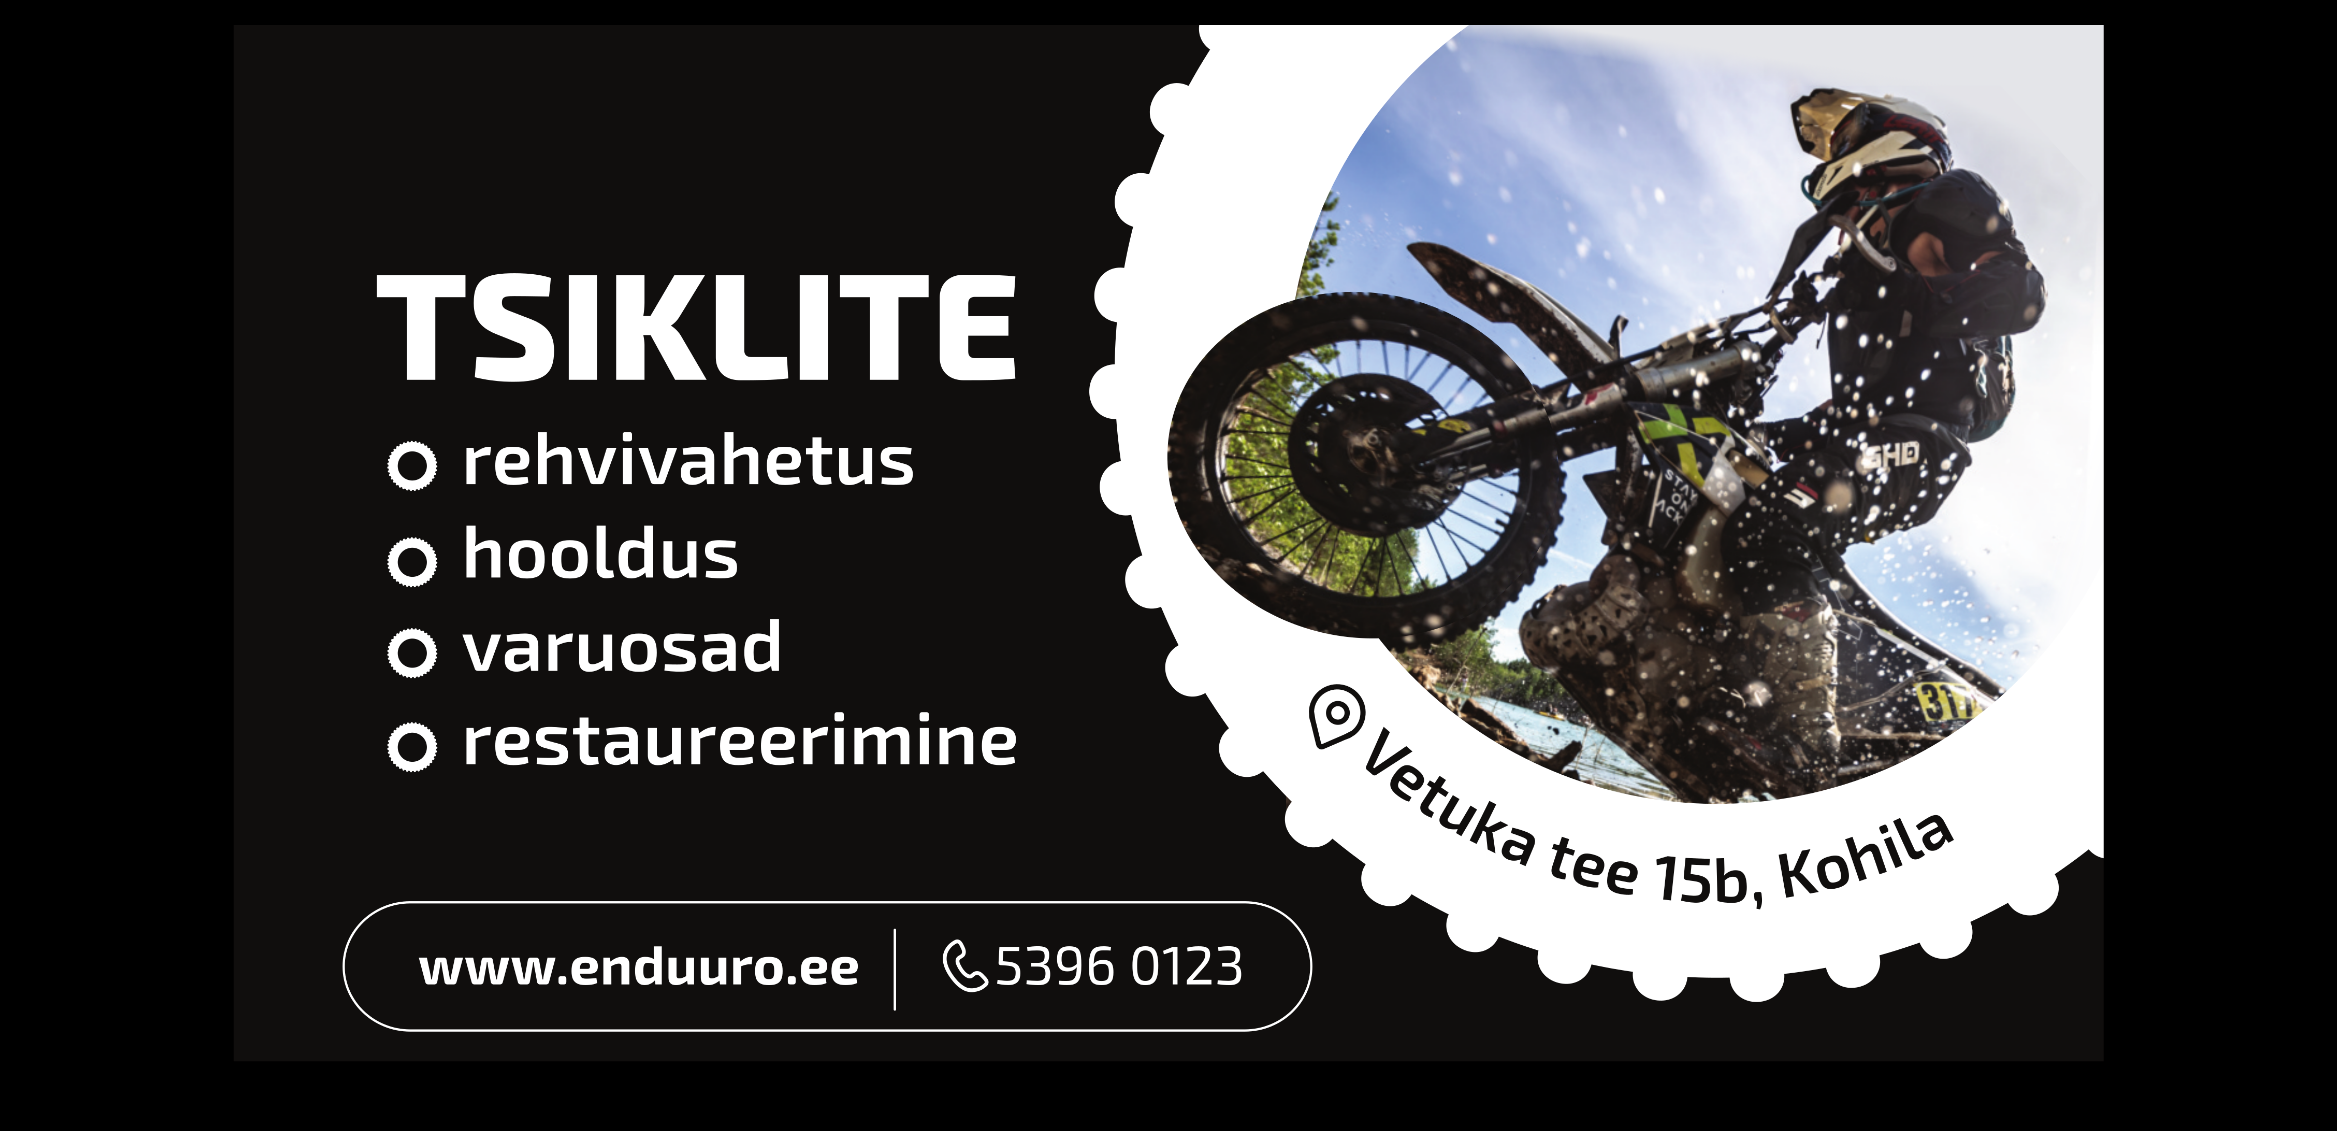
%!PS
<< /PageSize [2337 1131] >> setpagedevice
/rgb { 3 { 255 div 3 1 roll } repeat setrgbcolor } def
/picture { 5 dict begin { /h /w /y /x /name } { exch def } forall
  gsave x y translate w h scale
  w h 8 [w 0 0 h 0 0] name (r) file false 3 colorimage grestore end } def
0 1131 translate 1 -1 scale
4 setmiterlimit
0 0 0 rgb
0 0 2337 1131 rectfill
(img/1.rgb) 233 25 1871 1037 picture
showpage
